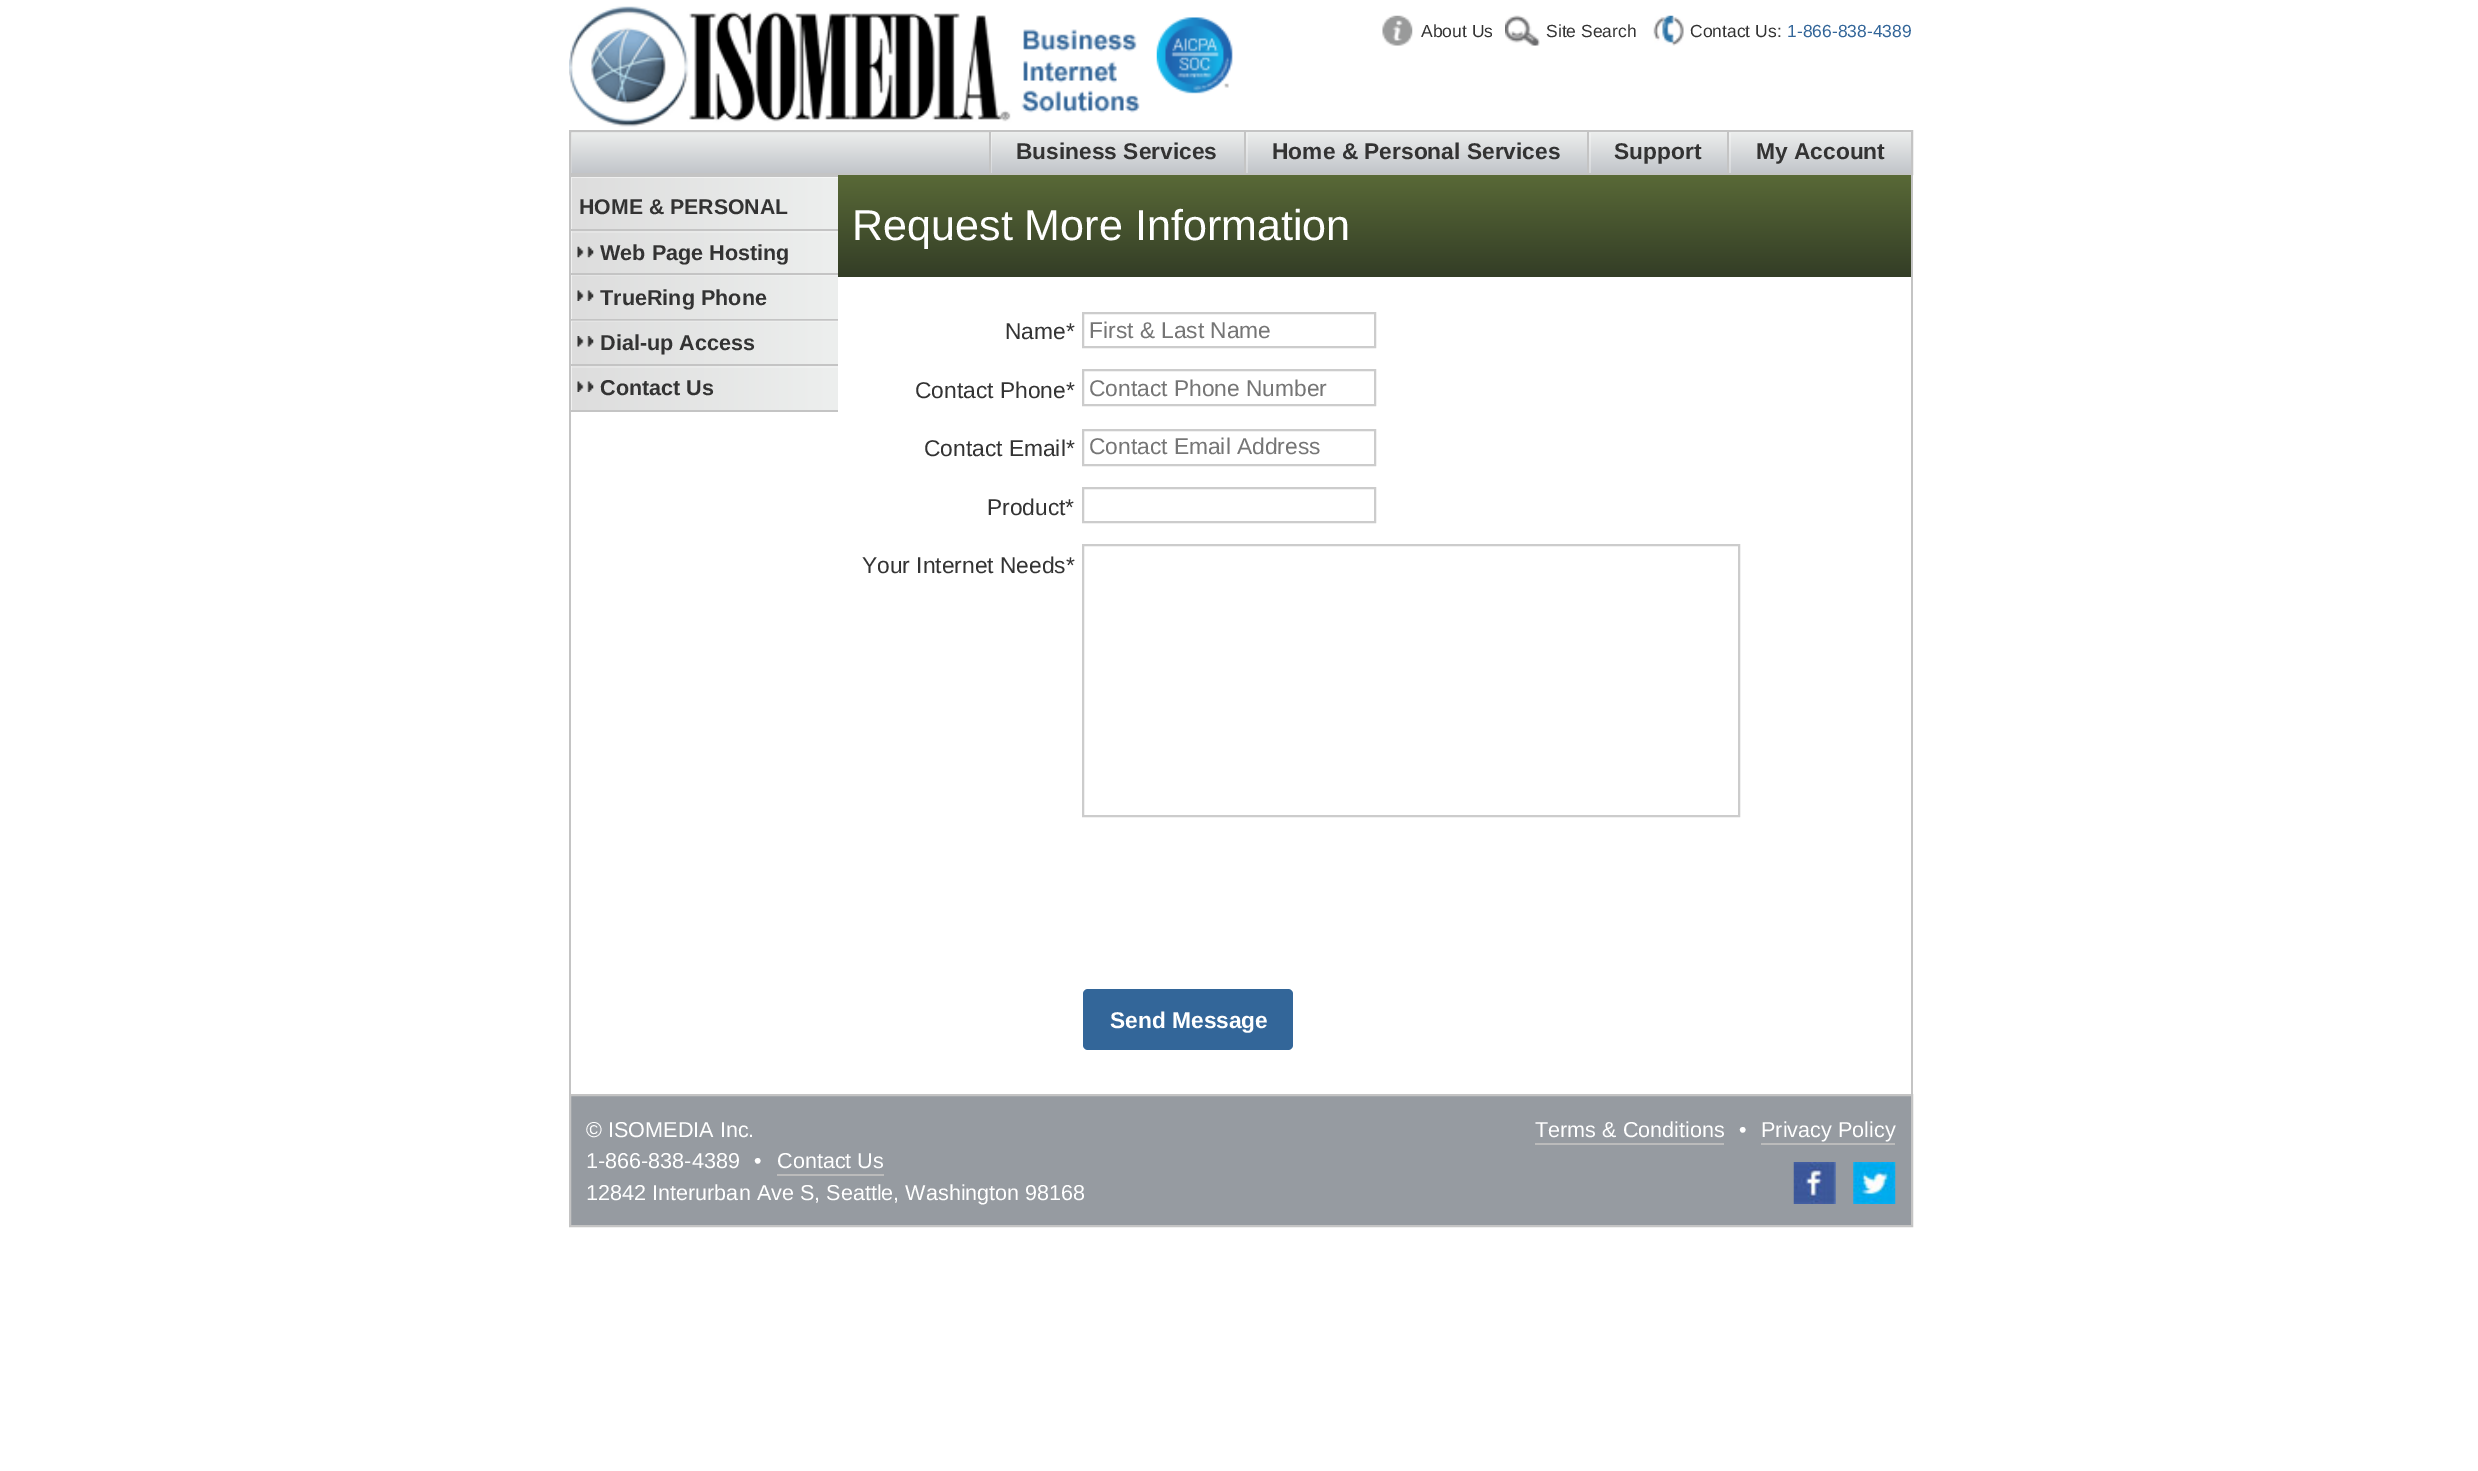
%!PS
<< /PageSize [2478 1471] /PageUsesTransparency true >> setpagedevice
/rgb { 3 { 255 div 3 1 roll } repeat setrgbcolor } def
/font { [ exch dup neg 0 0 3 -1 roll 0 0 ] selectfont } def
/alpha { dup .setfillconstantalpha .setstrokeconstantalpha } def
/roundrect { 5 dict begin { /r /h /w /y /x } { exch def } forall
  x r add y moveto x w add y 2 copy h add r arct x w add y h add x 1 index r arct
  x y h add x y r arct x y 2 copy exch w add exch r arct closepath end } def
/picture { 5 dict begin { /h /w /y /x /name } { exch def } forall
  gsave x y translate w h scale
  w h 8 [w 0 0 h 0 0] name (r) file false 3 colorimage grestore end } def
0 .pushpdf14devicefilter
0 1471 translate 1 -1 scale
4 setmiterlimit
255 255 255 rgb
0 0 2478 1471 rectfill
(img/1.rgb) 569 6 571 121 picture
(img/2.rgb) 1156 17 77 77 picture
(img/3.rgb) 1382 15 31 31 picture
(img/4.rgb) 1505 15 35 31 picture
(img/5.rgb) 1653 15 31 31 picture
gsave 571 132 moveto 1911 132 lineto 1911 173 lineto 571 173 lineto closepath clip newpath
<< /ShadingType 2 /ColorSpace /DeviceRGB /Coords [1241 131 1241 173] /Extend [true true] /Function << /FunctionType 2 /Domain [0 1] /C0 [0.929 0.937 0.933] /C1 [0.761 0.773 0.792] /N 1 >> >> shfill grestore
gsave
571 131 1340 42 rectclip
0.3 alpha
397 -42 moveto 2084 -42 lineto 2084 346 lineto 397 346 lineto closepath 572 133 moveto 1913 133 lineto 1913 175 lineto 572 175 lineto closepath eofill
grestore
196 196 196 rgb
2 setlinewidth
570 131 1342 43 rectstroke
gsave
991 131 253 42 rectclip
0.3 alpha
255 255 255 rgb
817 -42 moveto 1418 -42 lineto 1418 346 lineto 817 346 lineto closepath 992 133 moveto 1246 133 lineto 1246 175 lineto 992 175 lineto closepath eofill
grestore
989 131 255 1 rectfill
989 130 2 43 rectfill
gsave
1246 131 341 42 rectclip
0.3 alpha
255 255 255 rgb
1073 -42 moveto 1760 -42 lineto 1760 346 lineto 1073 346 lineto closepath 1248 133 moveto 1589 133 lineto 1589 175 lineto 1248 175 lineto closepath eofill
grestore
1244 131 343 1 rectfill
1244 130 2 43 rectfill
gsave
1589 131 138 42 rectclip
0.3 alpha
255 255 255 rgb
1416 -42 moveto 1900 -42 lineto 1900 346 lineto 1416 346 lineto closepath 1591 133 moveto 1729 133 lineto 1729 175 lineto 1591 175 lineto closepath eofill
grestore
1587 131 140 1 rectfill
1587 130 2 43 rectfill
gsave
1729 131 182 42 rectclip
0.3 alpha
255 255 255 rgb
1556 -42 moveto 2084 -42 lineto 2084 346 lineto 1556 346 lineto closepath 1731 133 moveto 1913 133 lineto 1913 175 lineto 1731 175 lineto closepath eofill
grestore
[
  [1727 131 184 1 196 196 196]
  [1727 130 2 43 196 196 196]
  [1911 175 2 919 196 196 196]
  [569 175 2 919 196 196 196]
] { aload pop rgb rectfill } forall
gsave 571 177 moveto 838 177 lineto 838 410 lineto 571 410 lineto closepath clip newpath
<< /ShadingType 2 /ColorSpace /DeviceRGB /Coords [838 294 571 294] /Extend [true true] /Function << /FunctionType 2 /Domain [0 1] /C0 [0.929 0.937 0.933] /C1 [0.867 0.867 0.867] /N 1 >> >> shfill grestore
gsave
571 177 267 234 rectclip
0.5 alpha
255 255 255 rgb
397 4 moveto 1012 4 lineto 1012 584 lineto 397 584 lineto closepath 572 178 moveto 840 178 lineto 840 413 lineto 572 413 lineto closepath eofill
grestore
[
  [571 175 267 2 196 196 196]
  [571 229 267 2 196 196 196]
  [571 273 267 2 196 196 196]
] { aload pop rgb rectfill } forall
(img/6.rgb) 577 246 17 12 picture
gsave
571 231 267 42 rectclip
0.2 alpha
255 255 255 rgb
397 58 moveto 1012 58 lineto 1012 446 lineto 397 446 lineto closepath 572 233 moveto 840 233 lineto 840 275 lineto 572 275 lineto closepath eofill
grestore
571 319 267 2 rectfill
(img/7.rgb) 577 290 17 11 picture
gsave
571 275 267 44 rectclip
0.2 alpha
255 255 255 rgb
397 102 moveto 1012 102 lineto 1012 492 lineto 397 492 lineto closepath 572 276 moveto 840 276 lineto 840 320 lineto 572 320 lineto closepath eofill
grestore
571 364 267 2 rectfill
(img/8.rgb) 577 336 17 11 picture
gsave
571 320 267 44 rectclip
0.2 alpha
255 255 255 rgb
397 147 moveto 1012 147 lineto 1012 537 lineto 397 537 lineto closepath 572 322 moveto 840 322 lineto 840 366 lineto 572 366 lineto closepath eofill
grestore
571 410 267 2 rectfill
(img/7.rgb) 577 381 17 11 picture
gsave
571 366 267 44 rectclip
0.2 alpha
255 255 255 rgb
397 192 moveto 1012 192 lineto 1012 583 lineto 397 583 lineto closepath 572 368 moveto 840 368 lineto 840 411 lineto 572 411 lineto closepath eofill
grestore
gsave 838 175 moveto 1911 175 lineto 1911 277 lineto 838 277 lineto closepath clip newpath
<< /ShadingType 2 /ColorSpace /DeviceRGB /Coords [1375 175 1375 277] /Extend [true true] /Function << /FunctionType 2 /Domain [0 1] /C0 [0.349 0.412 0.216] /C1 [0.2 0.239 0.149] /N 1 >> >> shfill grestore
204 204 204 rgb
1083 313 292 34 rectstroke
1083 370 292 35 rectstroke
1083 430 292 35 rectstroke
1083 488 292 34 rectstroke
1083 545 656 271 rectstroke
51 102 153 rgb
1083 989 210 61 5 roundrect fill
150 155 161 rgb
570 1095 moveto 1912 1095 lineto 1912 1226 lineto 570 1226 lineto closepath gsave fill grestore
196 196 196 rgb
stroke
[
  [777 1174 107 2 187 187 187]
  [1535 1143 189 2 187 187 187]
  [1761 1143 134 2 187 187 187]
] { aload pop rgb rectfill } forall
(img/9.rgb) 1793 1162 43 42 picture
(img/10.rgb) 1853 1162 43 42 picture
/LiberationSans-Regular 17.5 font
51 51 51 rgb
[
  [(About Us) 1421 37]
  [(Site Search) 1546 37]
  [(Contact Us:) 1690 37]
] { aload pop moveto show } forall
51 102 153 rgb
1787 37 moveto (1-866-838-4389) show
/LiberationSans-Bold 22.75 font
51 51 51 rgb
[
  [(Business Services) 1016 159]
  [(Home & Personal Services) 1272 159]
  [(Support) 1614 159]
  [(My Account) 1756 159]
] { aload pop moveto show } forall
/LiberationSans-Bold 21.25 font
579 214 moveto (HOME & PERSONAL) show
/LiberationSans-Bold 21.6 font
[
  [(Web Page Hosting) 600 260]
  [(TrueRing Phone) 600 305]
  [(Dial-up Access) 600 350]
  [(Contact Us) 600 395]
] { aload pop moveto show } forall
/LiberationSans-Regular 43.1 font
255 255 255 rgb
852 240 moveto (Request More Information) show
/LiberationSans-Regular 22.75 font
51 51 51 rgb
1005 339 moveto (Name*) show
117 117 117 rgb
1089 338 moveto (First & Last Name) show
51 51 51 rgb
915 398 moveto (Contact Phone*) show
117 117 117 rgb
1089 396 moveto (Contact Phone Number) show
51 51 51 rgb
924 456 moveto (Contact Email*) show
117 117 117 rgb
1089 454 moveto (Contact Email Address) show
51 51 51 rgb
987 515 moveto (Product*) show
862 573 moveto (Your Internet Needs*) show
/LiberationSans-Bold 22.75 font
255 255 255 rgb
1110 1028 moveto (Send Message) show
/LiberationSans-Regular 21.6 font
[
  [(© ISOMEDIA Inc.) 586 1137]
  [(1-866-838-4389) 586 1168]
  [(•) 754 1168]
  [(Contact Us) 777 1168]
  [(12842 Interurban Ave S, Seattle, Washington 98168) 586 1200]
  [(Terms & Conditions) 1535 1137]
  [(•) 1739 1137]
  [(Privacy Policy) 1761 1137]
] { aload pop moveto show } forall
.poppdf14devicefilter showpage
